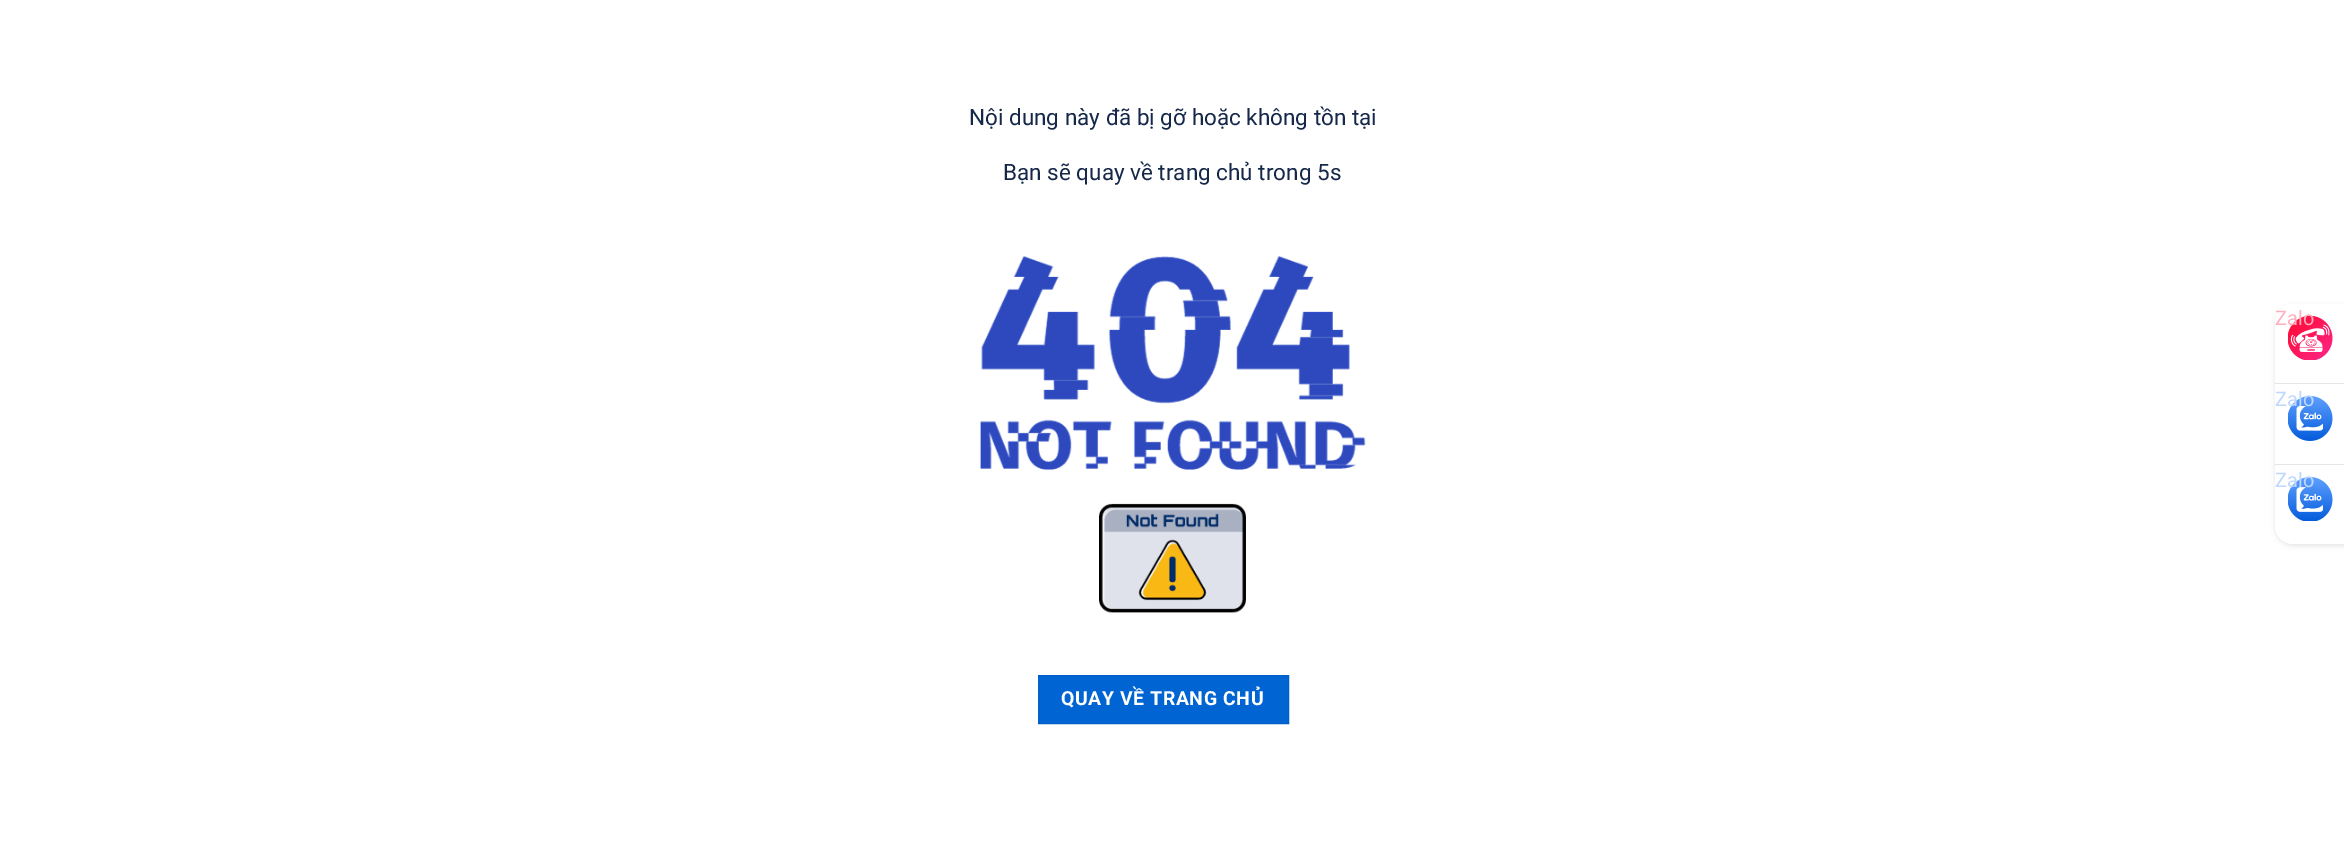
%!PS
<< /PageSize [2344 846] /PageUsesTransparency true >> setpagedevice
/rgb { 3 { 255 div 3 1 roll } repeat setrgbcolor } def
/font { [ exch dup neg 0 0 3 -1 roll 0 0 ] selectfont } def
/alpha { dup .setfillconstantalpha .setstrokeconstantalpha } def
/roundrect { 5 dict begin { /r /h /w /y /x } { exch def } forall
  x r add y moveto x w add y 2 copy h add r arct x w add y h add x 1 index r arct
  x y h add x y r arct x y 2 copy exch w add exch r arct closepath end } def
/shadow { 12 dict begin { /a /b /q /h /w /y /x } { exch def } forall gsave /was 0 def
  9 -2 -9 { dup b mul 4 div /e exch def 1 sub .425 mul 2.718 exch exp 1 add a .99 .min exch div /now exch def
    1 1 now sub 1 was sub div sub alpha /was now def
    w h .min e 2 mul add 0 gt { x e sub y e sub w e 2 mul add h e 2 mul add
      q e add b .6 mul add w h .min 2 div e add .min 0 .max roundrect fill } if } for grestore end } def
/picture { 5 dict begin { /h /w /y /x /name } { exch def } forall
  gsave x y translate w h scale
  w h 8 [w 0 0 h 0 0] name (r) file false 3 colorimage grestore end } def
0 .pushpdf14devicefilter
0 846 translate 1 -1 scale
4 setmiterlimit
255 255 255 rgb
0 0 2344 846 rectfill
(img/1.rgb) 980 256 386 357 picture
0 100 210 rgb
1038.5 675.5 moveto 1288.5 675.5 lineto 1288.5 723.5 lineto 1038.5 723.5 lineto closepath gsave fill grestore
0 95 200 rgb
stroke
0 0 0 rgb
2275 306 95 240 18 2.5 0.1 shadow
255 255 255 rgb
2293 304 moveto 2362 304 lineto 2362 544 lineto 2293 544 lineto 2283 544 2275 536 2275 526 curveto 2275 322 lineto 2275 312 2283 304 2293 304 curveto closepath fill
(img/2.rgb) 2288 315 45 45 picture
229 229 229 rgb
2275 383 69 1 rectfill
(img/3.rgb) 2288 396 45 45 picture
2275 464 69 1 rectfill
(img/4.rgb) 2288 477 45 44 picture
/Roboto-Regular 22.5 font
21 40 74 rgb
969 125 moveto (Nội dung này đã bị gỡ hoặc không tồn tại) show
1003 180 moveto (Bạn sẽ quay về trang chủ trong 5s) show
/Roboto-Bold 19.4 font
255 255 255 rgb
1061 705 moveto 0.6 0 (QUAY VỀ TRANG CHỦ) ashow
/Roboto-Regular 20 font
255 174 191 rgb
2275 325 moveto (Zalo) show
189 215 253 rgb
2275 406 moveto (Zalo) show
2275 487 moveto (Zalo) show
.poppdf14devicefilter showpage
